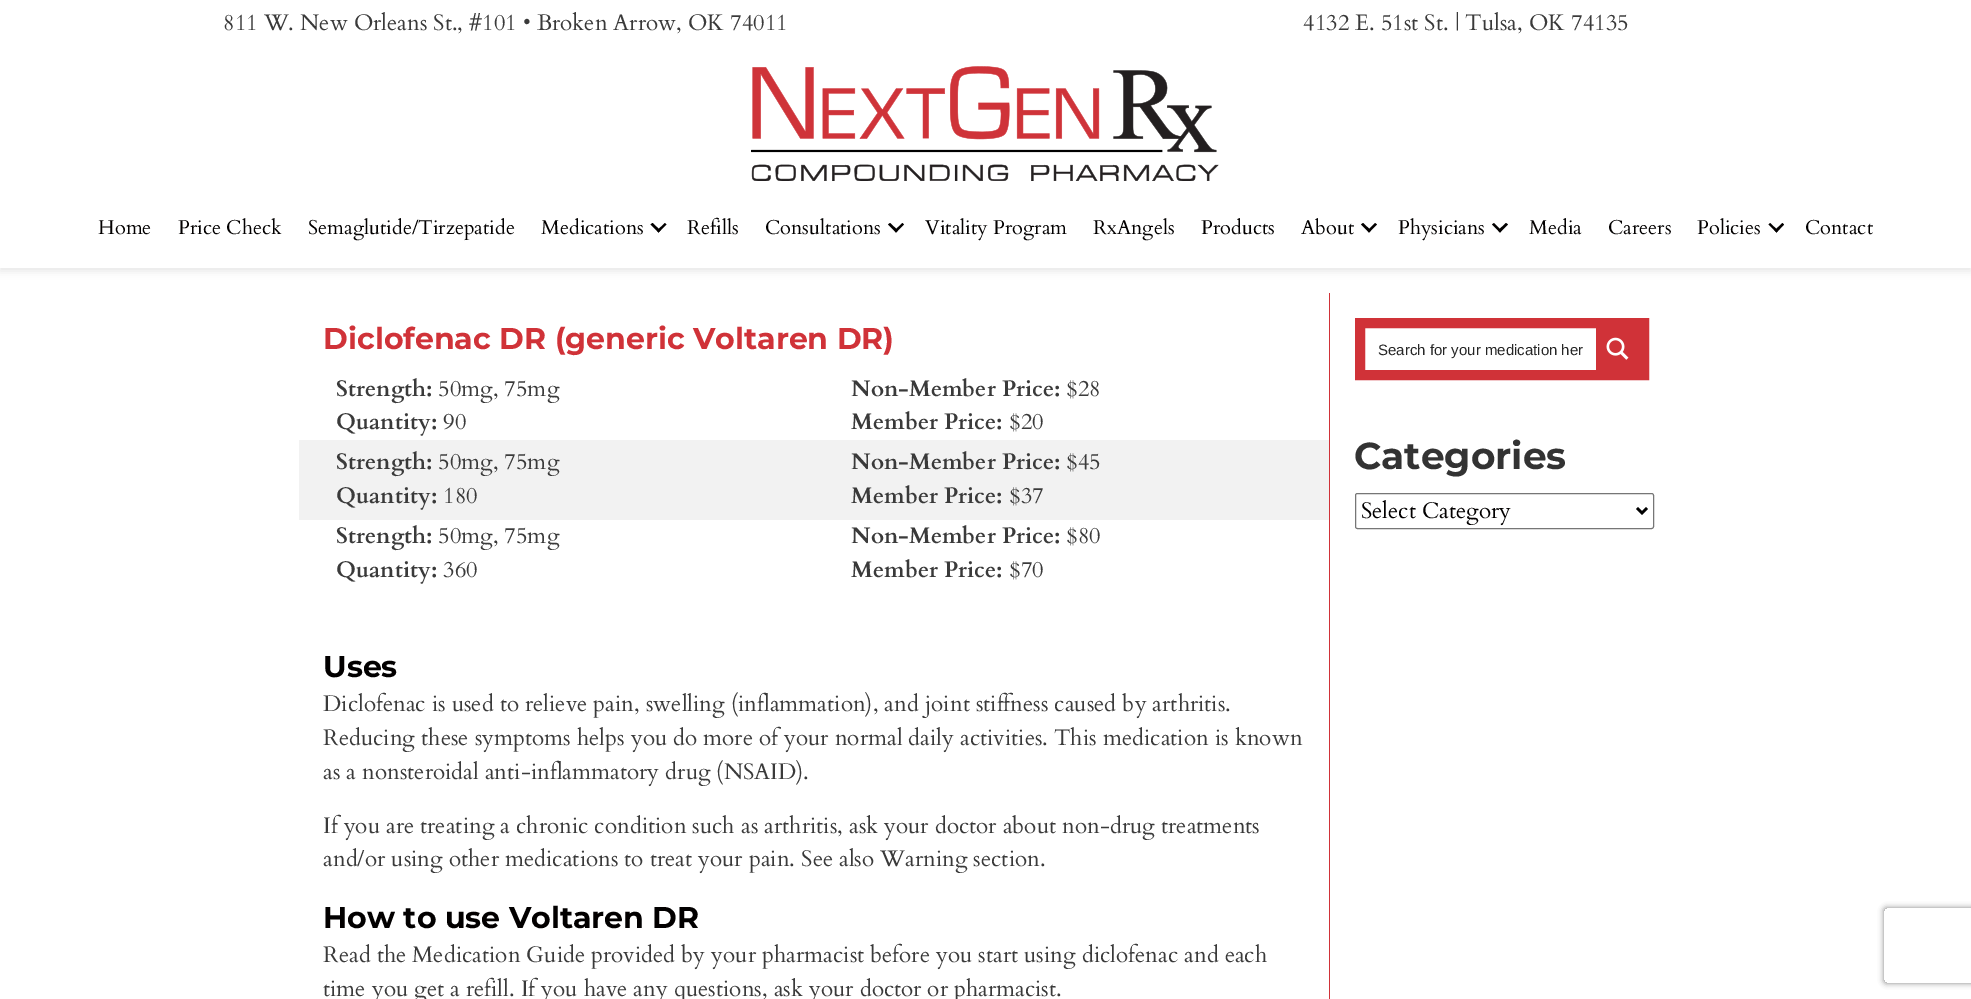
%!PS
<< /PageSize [1971 999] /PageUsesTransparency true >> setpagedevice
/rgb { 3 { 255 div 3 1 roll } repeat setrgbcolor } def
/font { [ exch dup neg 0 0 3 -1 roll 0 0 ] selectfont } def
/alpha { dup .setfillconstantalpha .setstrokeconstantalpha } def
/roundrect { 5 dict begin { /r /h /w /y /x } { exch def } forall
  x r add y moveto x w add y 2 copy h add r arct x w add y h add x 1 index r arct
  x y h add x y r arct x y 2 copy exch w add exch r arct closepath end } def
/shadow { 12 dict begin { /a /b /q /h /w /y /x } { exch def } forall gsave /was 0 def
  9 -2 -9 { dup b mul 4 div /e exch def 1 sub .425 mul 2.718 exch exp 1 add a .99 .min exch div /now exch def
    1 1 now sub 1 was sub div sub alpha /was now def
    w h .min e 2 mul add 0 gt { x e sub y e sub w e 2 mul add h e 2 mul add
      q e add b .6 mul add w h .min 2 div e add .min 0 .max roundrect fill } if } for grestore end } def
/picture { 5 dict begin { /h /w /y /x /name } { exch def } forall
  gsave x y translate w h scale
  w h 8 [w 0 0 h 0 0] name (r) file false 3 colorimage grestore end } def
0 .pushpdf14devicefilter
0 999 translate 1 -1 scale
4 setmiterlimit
255 255 255 rgb
0 0 1971 999 rectfill
2 0 0 rgb
0 4 1971 267 0 4 0.1 shadow
255 255 255 rgb
0 0 1971 268 rectfill
(img/1.rgb) 751 66 468 115 picture
2 0 0 rgb
665 223 moveto 666.5 224.5 lineto 658.5 232.5 lineto 657 230.5 lineto closepath fill
652.5 223 moveto 660.5 230.5 lineto 658.5 232.5 lineto 650.5 224.5 lineto closepath fill
902.5 223 moveto 904 224.5 lineto 896 232.5 lineto 894.5 230.5 lineto closepath fill
890 223 moveto 898 230.5 lineto 896 232.5 lineto 888 224.5 lineto closepath fill
1375 223 moveto 1377 224.5 lineto 1369 232.5 lineto 1367.5 230.5 lineto closepath fill
1363 223 moveto 1371 230.5 lineto 1369 232.5 lineto 1361 224.5 lineto closepath fill
1506 223 moveto 1508 224.5 lineto 1500 232.5 lineto 1498 230.5 lineto closepath fill
1494 223 moveto 1501.5 230.5 lineto 1500 232.5 lineto 1492 224.5 lineto closepath fill
1782.5 223 moveto 1784 224.5 lineto 1776.5 232.5 lineto 1774.5 230.5 lineto closepath fill
1770 223 moveto 1778 230.5 lineto 1776.5 232.5 lineto 1768.5 224.5 lineto closepath fill
208 50 56 rgb
1329 293 1 706 rectfill
242 242 242 rgb
299 440 1030 80 rectfill
208 50 56 rgb
10 setlinewidth
1360 323 284 52 rectstroke
1596 328 43 42 rectfill
(img/2.rgb) 1606 337 23 23 picture
118 118 118 rgb
1 setlinewidth
1355.5 493.5 298 35 2 roundrect stroke
0 0 0 rgb
2.5 setlinewidth
1637 508 moveto 1642 513 lineto 1647 508 lineto stroke
gsave
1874 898 moveto 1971 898 lineto 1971 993 lineto 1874 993 lineto closepath 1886.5 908 moveto 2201.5 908 lineto 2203 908 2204 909 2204 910.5 curveto 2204 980.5 lineto 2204 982 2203 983 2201.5 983 curveto 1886.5 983 lineto 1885 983 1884 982 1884 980.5 curveto 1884 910.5 lineto 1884 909 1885 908 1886.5 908 curveto closepath eoclip newpath
128 128 128 rgb
1884 908 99 75 2.5 3 1 shadow
grestore
/Cardo-Regular 22.5 font
58 58 58 rgb
223 30 moveto (811 W. New Orleans St., #101 • Broken Arrow, OK 74011) show
1303 30 moveto (4132 E. 51st St. | Tulsa, OK 74135) show
/Cardo-Regular 20 font
2 0 0 rgb
[
  [(Home) 98 234]
  [(Price Check) 178 234]
  [(Semaglutide/Tirzepatide) 308 234]
  [(Medications) 541 234]
  [(Refills) 687 234]
  [(Consultations) 765 234]
  [(Vitality Program) 925 234]
  [(RxAngels) 1093 234]
  [(Products) 1201 234]
  [(About) 1301 234]
  [(Physicians) 1398 234]
  [(Media) 1529 234]
  [(Careers) 1608 234]
  [(Policies) 1697 234]
  [(Contact) 1805 234]
] { aload pop moveto show } forall
/Montserrat-Thin 30 font
208 50 56 rgb
323 349 moveto (Diclofenac DR \(generic Voltaren DR\)) show
/Cardo-Bold 22.5 font
58 58 58 rgb
336 396 moveto (Strength:) show
/Cardo-Regular 22.5 font
438 396 moveto (50mg, 75mg) show
/Cardo-Bold 22.5 font
336 429 moveto (Quantity:) show
/Cardo-Regular 22.5 font
443 429 moveto (90) show
/Cardo-Bold 22.5 font
851 396 moveto (Non-Member Price:) show
/Cardo-Regular 22.5 font
1066 396 moveto ($28) show
/Cardo-Bold 22.5 font
851 429 moveto (Member Price:) show
/Cardo-Regular 22.5 font
1009 429 moveto ($20) show
/Cardo-Bold 22.5 font
336 469 moveto (Strength:) show
/Cardo-Regular 22.5 font
438 469 moveto (50mg, 75mg) show
/Cardo-Bold 22.5 font
336 503 moveto (Quantity:) show
/Cardo-Regular 22.5 font
443 503 moveto (180) show
/Cardo-Bold 22.5 font
851 469 moveto (Non-Member Price:) show
/Cardo-Regular 22.5 font
1066 469 moveto ($45) show
/Cardo-Bold 22.5 font
851 503 moveto (Member Price:) show
/Cardo-Regular 22.5 font
1009 503 moveto ($37) show
/Cardo-Bold 22.5 font
336 543 moveto (Strength:) show
/Cardo-Regular 22.5 font
438 543 moveto (50mg, 75mg) show
/Cardo-Bold 22.5 font
336 577 moveto (Quantity:) show
/Cardo-Regular 22.5 font
443 577 moveto (360) show
/Cardo-Bold 22.5 font
851 543 moveto (Non-Member Price:) show
/Cardo-Regular 22.5 font
1066 543 moveto ($80) show
/Cardo-Bold 22.5 font
851 577 moveto (Member Price:) show
/Cardo-Regular 22.5 font
1009 577 moveto ($70) show
/Montserrat-Thin 30 font
2 0 0 rgb
323 677 moveto (Uses) show
/Cardo-Regular 22.5 font
58 58 58 rgb
[
  [(Diclofenac is used to relieve pain, swelling \(inflammation\), and joint stiffness caused by arthritis.) 323 711]
  [(Reducing these symptoms helps you do more of your normal daily activities. This medication is known) 323 745]
  [(as a nonsteroidal anti-inflammatory drug \(NSAID\).) 323 779]
  [(If you are treating a chronic condition such as arthritis, ask your doctor about non-drug treatments) 323 833]
  [(and/or using other medications to treat your pain. See also Warning section.) 323 866]
] { aload pop moveto show } forall
/Montserrat-Thin 30 font
2 0 0 rgb
323 928 moveto (How to use Voltaren DR) show
/Cardo-Regular 22.5 font
58 58 58 rgb
323 962 moveto (Read the Medication Guide provided by your pharmacist before you start using diclofenac and each) show
323 996 moveto (time you get a refill. If you have any questions, ask your doctor or pharmacist.) show
/LiberationSans-Regular 15 font
38 38 38 rgb
1378 355 moveto (Search for your medication her) show
/Montserrat-Thin 37.5 font
51 51 51 rgb
1354 469 moveto (Categories) show
/Cardo-Regular 22.5 font
2 0 0 rgb
1361 518 moveto (Select Category) show
.poppdf14devicefilter showpage
